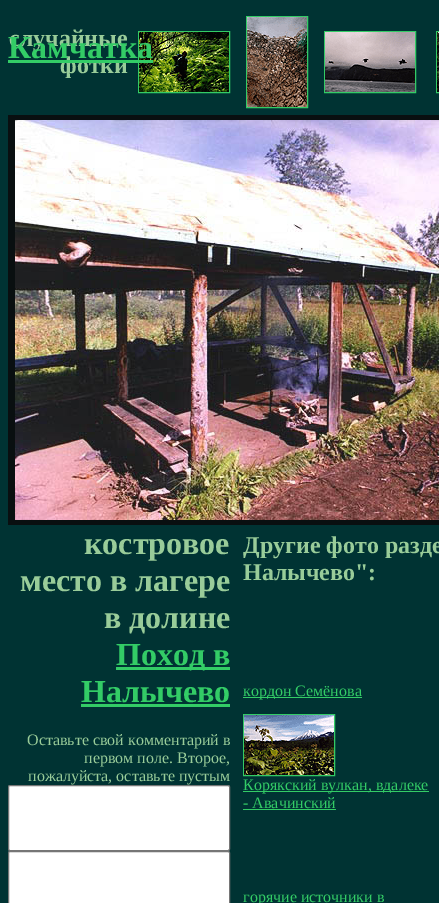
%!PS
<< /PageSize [439 903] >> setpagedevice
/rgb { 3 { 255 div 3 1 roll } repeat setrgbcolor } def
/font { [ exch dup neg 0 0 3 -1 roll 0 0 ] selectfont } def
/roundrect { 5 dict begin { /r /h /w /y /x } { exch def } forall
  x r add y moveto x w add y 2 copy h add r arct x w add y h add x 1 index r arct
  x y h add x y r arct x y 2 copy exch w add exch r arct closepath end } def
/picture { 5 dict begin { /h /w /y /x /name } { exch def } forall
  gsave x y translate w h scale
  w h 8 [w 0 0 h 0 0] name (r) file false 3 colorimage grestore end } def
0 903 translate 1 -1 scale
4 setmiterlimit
0 51 51 rgb
0 0 439 903 rectfill
51 204 102 rgb
138.5 31.5 91 61 rectstroke
(img/1.rgb) 139 32 90 60 picture
246.5 16.5 61 91 rectstroke
(img/2.rgb) 247 17 60 90 picture
324.5 31.5 91 61 rectstroke
(img/3.rgb) 325 32 90 60 picture
436.5 31.5 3 61 rectstroke
(img/4.rgb) 437 32 2 60 picture
9 15 16 rgb
8 115 431 5 rectfill
8 120 7 400 rectfill
(img/5.rgb) 15 120 424 400 picture
[
  [8 520 431 5 9 15 16]
  [116 667 114 3 51 204 102]
  [81 704 149 3 51 204 102]
] { aload pop rgb rectfill } forall
255 255 255 rgb
8.5 785.5 221 65 1.5 roundrect gsave fill grestore
118 118 118 rgb
stroke
255 255 255 rgb
8.5 851.5 221 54 1.5 roundrect gsave fill grestore
118 118 118 rgb
stroke
51 204 102 rgb
243 697 119 1 rectfill
243.5 714.5 91 61 rectstroke
(img/6.rgb) 244 715 90 60 picture
243 791 186 1 rectfill
243 809 93 1 rectfill
/LiberationSerif-Bold 24 font
153 204 153 rgb
9 46 moveto (случайные) show
60 73 moveto (фотки) show
/LiberationSerif-Bold 32 font
[
  [(костровое) 84 554]
  [(место в лагере) 20 591]
  [(в долине) 104 628]
] { aload pop moveto show } forall
51 204 102 rgb
116 665 moveto (Поход в) show
81 702 moveto (Налычево) show
/LiberationSerif-Regular 16 font
153 204 153 rgb
[
  [(Оставьте свой комментарий в) 27 745]
  [(первом поле. Второе,) 84 763]
  [(пожалуйста, оставьте пустым) 28 781]
] { aload pop moveto show } forall
/LiberationSerif-Bold 24 font
243 553 moveto (Другие фото разде) show
243 580 moveto (Налычево":) show
/LiberationSerif-Regular 16 font
51 204 102 rgb
[
  [(кордон Семёнова) 243 696]
  [(Корякский вулкан, вдалеке) 243 790]
  [(- Авачинский) 243 808]
  [(горячие источники в) 243 902]
] { aload pop moveto show } forall
/LiberationSerif-Bold 32 font
8 58 moveto (Камчатка) show
8 60 145 3 rectfill
showpage
